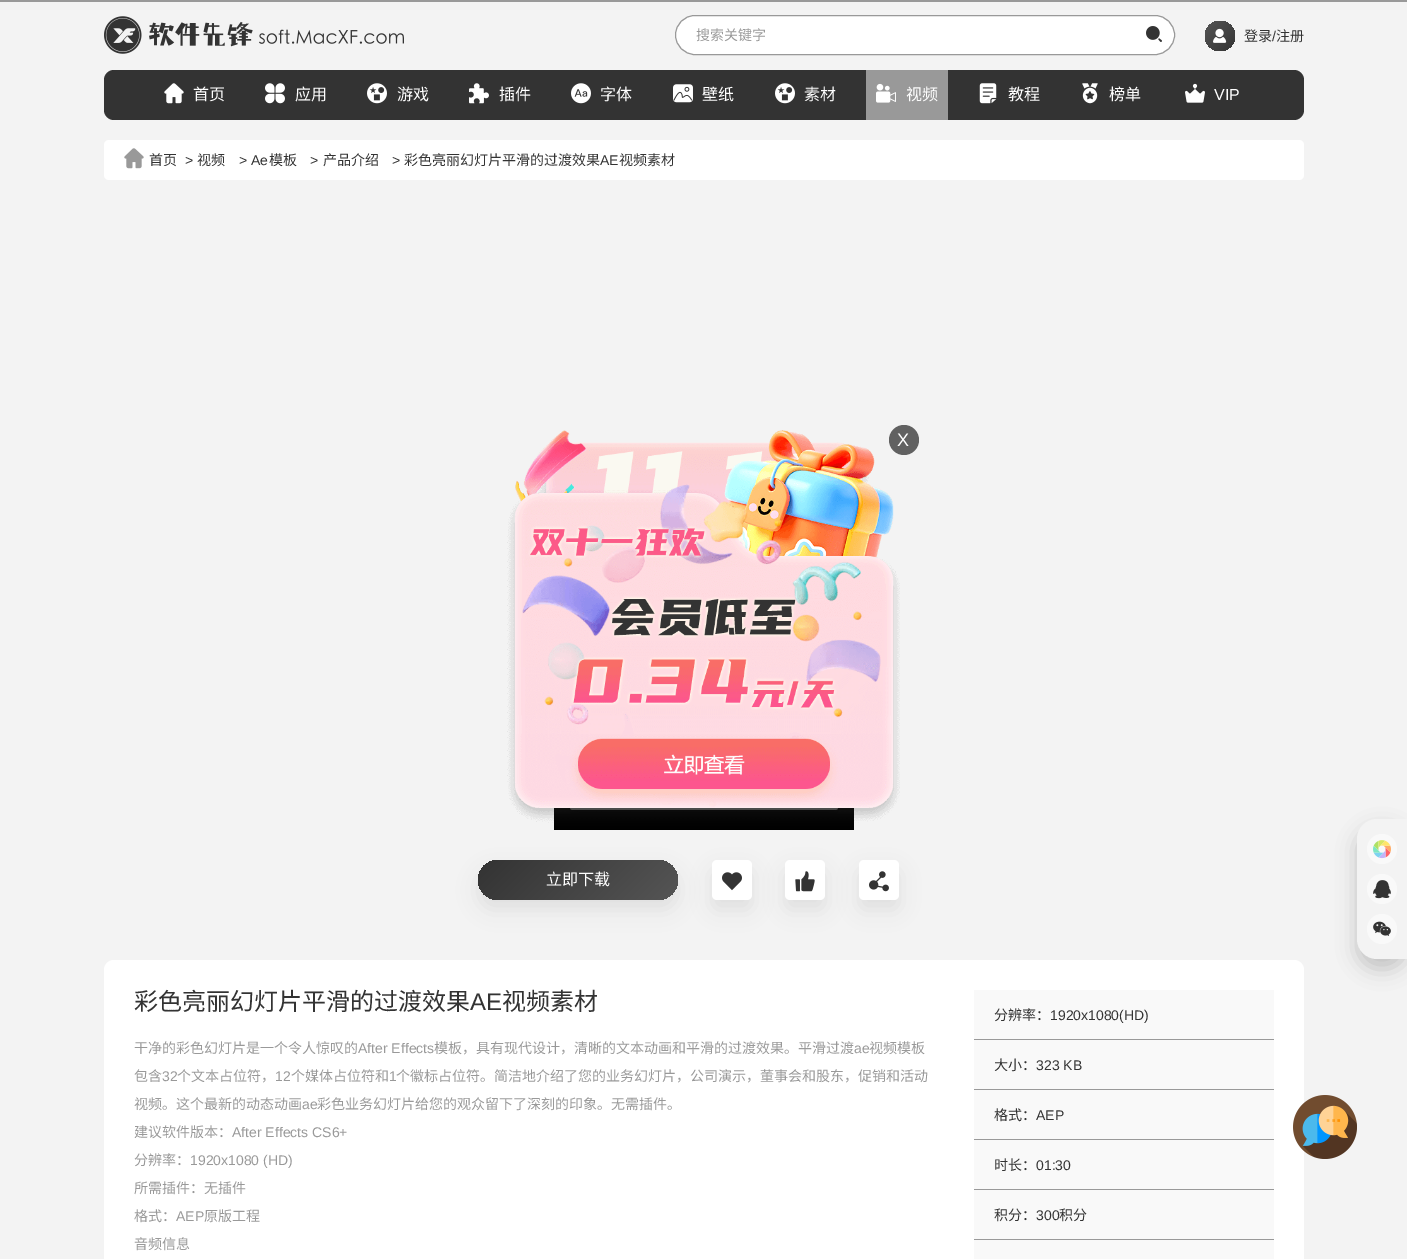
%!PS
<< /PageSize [1407 1259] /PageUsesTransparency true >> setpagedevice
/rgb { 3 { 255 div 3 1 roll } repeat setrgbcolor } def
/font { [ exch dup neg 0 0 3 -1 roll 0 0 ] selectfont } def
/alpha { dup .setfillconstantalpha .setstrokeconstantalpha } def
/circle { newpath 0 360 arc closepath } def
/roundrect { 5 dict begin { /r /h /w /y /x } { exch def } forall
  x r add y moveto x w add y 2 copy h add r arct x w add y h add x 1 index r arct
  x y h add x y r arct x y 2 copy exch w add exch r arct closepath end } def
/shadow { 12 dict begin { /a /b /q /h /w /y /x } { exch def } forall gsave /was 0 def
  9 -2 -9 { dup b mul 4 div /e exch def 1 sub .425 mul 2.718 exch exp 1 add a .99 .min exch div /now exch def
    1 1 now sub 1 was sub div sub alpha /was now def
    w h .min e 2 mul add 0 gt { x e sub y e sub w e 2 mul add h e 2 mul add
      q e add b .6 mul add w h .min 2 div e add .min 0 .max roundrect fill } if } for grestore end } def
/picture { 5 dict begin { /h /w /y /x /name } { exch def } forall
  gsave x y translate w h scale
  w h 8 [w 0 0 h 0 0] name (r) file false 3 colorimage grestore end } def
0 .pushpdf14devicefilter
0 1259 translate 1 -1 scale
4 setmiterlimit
243 243 243 rgb
0 0 1407 1259 rectfill
153 153 153 rgb
0 0 1407 2 rectfill
(img/1.rgb) 104 16 300 38 picture
255 255 255 rgb
675.5 15.5 499 39 19.5 roundrect gsave fill grestore
153 153 153 rgb
stroke
(img/2.rgb) 1146 26 16 16 picture
gsave 1220 36 15 circle clip newpath
<< /ShadingType 2 /ColorSpace /DeviceRGB /Coords [1205 21 1235 51] /Extend [true true] /Function << /FunctionType 2 /Domain [0 1] /C0 [0.333 0.333 0.333] /C1 [0.2 0.2 0.2] /N 1 >> >> shfill grestore
(img/3.rgb) 1213 28 14 15 picture
51 51 51 rgb
104 70 1200 50 10 roundrect fill
(img/4.rgb) 164 83 20 21 picture
(img/5.rgb) 265 83 20 21 picture
(img/6.rgb) 367 83 20 21 picture
(img/7.rgb) 469 83 20 21 picture
(img/8.rgb) 571 83 20 21 picture
(img/9.rgb) 673 84 20 19 picture
(img/6.rgb) 775 83 20 21 picture
153 153 153 rgb
866 70 82 50 rectfill
(img/10.rgb) 876 83 20 20 picture
(img/11.rgb) 979 83 18 21 picture
(img/12.rgb) 1082 83 16 21 picture
(img/13.rgb) 1185 83 20 20 picture
255 255 255 rgb
104 140 1200 40 5 roundrect fill
(img/14.rgb) 124 148 20 21 picture
(img/15.rgb) 554 808 300 22 picture
51 51 51 rgb
478 870 200 40 20 10 0.1 shadow
gsave 478 860 200 40 20 roundrect clip newpath
<< /ShadingType 2 /ColorSpace /DeviceRGB /Coords [518 820 638 940] /Extend [true true] /Function << /FunctionType 2 /Domain [0 1] /C0 [0.2 0.2 0.2] /C1 [0.333 0.333 0.333] /N 1 >> >> shfill grestore
712 870 40 40 5 10 0.1 shadow
255 255 255 rgb
712 860 40 40 5 roundrect fill
(img/16.rgb) 722 872 20 19 picture
51 51 51 rgb
785 870 40 40 5 10 0.1 shadow
255 255 255 rgb
785 860 40 40 5 roundrect fill
(img/17.rgb) 795 871 20 21 picture
51 51 51 rgb
859 870 40 40 5 10 0.1 shadow
255 255 255 rgb
859 860 40 40 5 roundrect fill
(img/18.rgb) 869 871 20 21 picture
104 960 1200 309 10 roundrect fill
[
  [974 990 300 269 249 249 249]
  [974 1039 300 1 153 153 153]
  [974 1089 300 1 153 153 153]
  [974 1139 300 1 153 153 153]
  [974 1189 300 1 153 153 153]
  [974 1239 300 1 153 153 153]
] { aload pop rgb rectfill } forall
0 0 0 rgb
1357 829 50 140 20 10 0.2 shadow
243 243 243 rgb
1377 819 moveto 1407 819 lineto 1407 959 lineto 1377 959 lineto 1366 959 1357 950 1357 939 curveto 1357 839 lineto 1357 828 1366 819 1377 819 curveto closepath fill
249 249 249 rgb
1382 849 15 circle fill
(img/20.rgb) 1373 841 6 10 picture
(img/19.rgb) 1378 840 8 8 picture
(img/23.rgb) 1383 845 8 8 picture
(img/21.rgb) 1380 840 11 6 picture
(img/25.rgb) 1385 847 6 11 picture
(img/24.rgb) 1378 850 8 9 picture
(img/26.rgb) 1373 852 11 6 picture
(img/22.rgb) 1373 846 8 7 picture
1382 889 15 circle fill
(img/27.rgb) 1373 880 18 19 picture
1382 929 15 circle fill
(img/28.rgb) 1373 921 18 15 picture
(img/29.rgb) 1293 1095 64 64 picture
(img/30.rgb) 507 430 393 393 picture
97 97 97 rgb
904 440 15 circle fill
/NotoSansCJKSC-Regular 14 font
153 153 153 rgb
696 40 moveto (搜索关键字) show
51 51 51 rgb
1244 41 moveto (登录) show
/LiberationSans-Regular 14 font
1272 41 moveto (/) show
/NotoSansCJKSC-Regular 14 font
1276 41 moveto (注册) show
/NotoSansCJKSC-Regular 16 font
255 255 255 rgb
[
  [(首页) 193 100]
  [(应用) 295 100]
  [(游戏) 397 100]
  [(插件) 499 100]
  [(字体) 600 100]
  [(壁纸) 702 100]
  [(素材) 804 100]
  [(视频) 906 100]
  [(教程) 1008 100]
  [(榜单) 1109 100]
] { aload pop moveto show } forall
/LiberationSans-Regular 16 font
1214 100 moveto (VIP) show
/NotoSansCJKSC-Regular 14 font
51 51 51 rgb
149 165 moveto (首页) show
/LiberationSans-Regular 14 font
185 165 moveto (>) show
/NotoSansCJKSC-Regular 14 font
197 165 moveto (视频) show
/LiberationSans-Regular 14 font
239 165 moveto (> Ae) show
/NotoSansCJKSC-Regular 14 font
269 165 moveto (模板) show
/LiberationSans-Regular 14 font
310 165 moveto (>) show
/NotoSansCJKSC-Regular 14 font
323 165 moveto (产品介绍) show
/LiberationSans-Regular 14 font
392 165 moveto (>) show
/NotoSansCJKSC-Regular 14 font
404 165 moveto (彩色亮丽幻灯片平滑的过渡效果) show
/LiberationSans-Regular 14 font
600 165 moveto (AE) show
/NotoSansCJKSC-Regular 14 font
619 165 moveto (视频素材) show
/NotoSansCJKSC-Regular 16 font
255 255 255 rgb
546 885 moveto (立即下载) show
/NotoSansCJKSC-Regular 24 font
51 51 51 rgb
134 1010 moveto (彩色亮丽幻灯片平滑的过渡效果) show
/LiberationSans-Regular 24 font
470 1010 moveto (AE) show
/NotoSansCJKSC-Regular 24 font
502 1010 moveto (视频素材) show
/NotoSansCJKSC-Regular 14 font
153 153 153 rgb
134 1053 moveto (干净的彩色幻灯片是一个令人惊叹的) show
/LiberationSans-Regular 14 font
358 1053 moveto (After Effects) show
/NotoSansCJKSC-Regular 14 font
434 1053 moveto (模板，具有现代设计，清晰的文本动画和平滑的过渡效果。平滑过渡) show
/LiberationSans-Regular 14 font
854 1053 moveto (ae) show
/NotoSansCJKSC-Regular 14 font
869 1053 moveto (视频模板) show
134 1081 moveto (包含) show
/LiberationSans-Regular 14 font
162 1081 moveto (32) show
/NotoSansCJKSC-Regular 14 font
177 1081 moveto (个文本占位符，) show
/LiberationSans-Regular 14 font
275 1081 moveto (12) show
/NotoSansCJKSC-Regular 14 font
291 1081 moveto (个媒体占位符和) show
/LiberationSans-Regular 14 font
389 1081 moveto (1) show
/NotoSansCJKSC-Regular 14 font
396 1081 moveto (个徽标占位符。简洁地介绍了您的业务幻灯片，公司演示，董事会和股东，促销和活动) show
134 1109 moveto (视频。这个最新的动态动画) show
/LiberationSans-Regular 14 font
302 1109 moveto (ae) show
/NotoSansCJKSC-Regular 14 font
317 1109 moveto (彩色业务幻灯片给您的观众留下了深刻的印象。无需插件。) show
134 1137 moveto (建议软件版本：) show
/LiberationSans-Regular 14 font
232 1137 moveto (After Effects CS6+) show
/NotoSansCJKSC-Regular 14 font
134 1165 moveto (分辨率：) show
/LiberationSans-Regular 14 font
190 1165 moveto (1920x1080 \(HD\)) show
/NotoSansCJKSC-Regular 14 font
134 1193 moveto (所需插件：无插件) show
134 1221 moveto (格式：) show
/LiberationSans-Regular 14 font
176 1221 moveto (AEP) show
/NotoSansCJKSC-Regular 14 font
204 1221 moveto (原版工程) show
134 1249 moveto (音频信息) show
51 51 51 rgb
994 1020 moveto (分辨率：) show
/LiberationSans-Regular 14 font
1050 1020 moveto (1920x1080\(HD\)) show
/NotoSansCJKSC-Regular 14 font
994 1070 moveto (大小：) show
/LiberationSans-Regular 14 font
1036 1070 moveto (323 KB) show
/NotoSansCJKSC-Regular 14 font
994 1120 moveto (格式：) show
/LiberationSans-Regular 14 font
1036 1120 moveto (AEP) show
/NotoSansCJKSC-Regular 14 font
994 1170 moveto (时长：) show
/LiberationSans-Regular 14 font
1036 1170 moveto (01:30) show
/NotoSansCJKSC-Regular 14 font
994 1220 moveto (积分：) show
/LiberationSans-Regular 14 font
1036 1220 moveto (300) show
/NotoSansCJKSC-Regular 14 font
1059 1220 moveto (积分) show
/LiberationSans-Regular 18 font
255 255 255 rgb
897 446 moveto (X) show
.poppdf14devicefilter showpage
